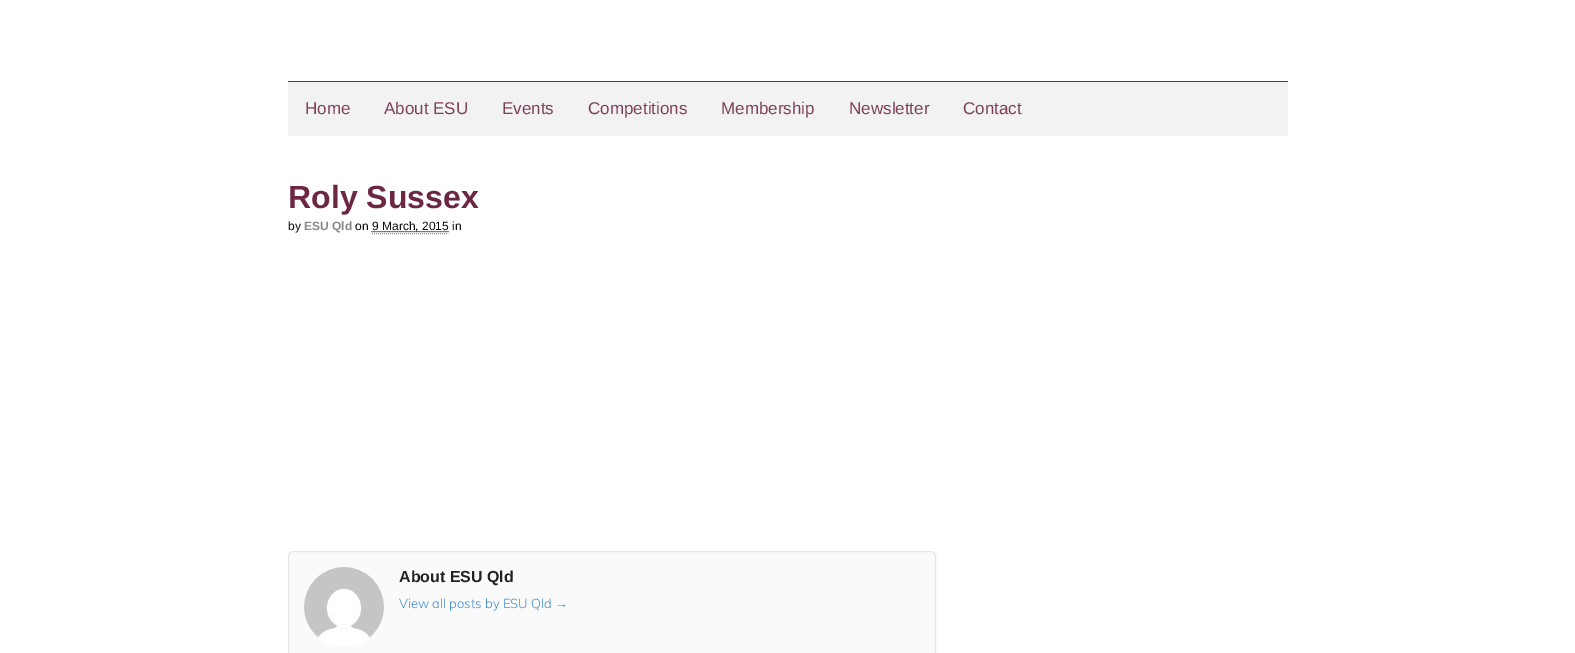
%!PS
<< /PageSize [1575 653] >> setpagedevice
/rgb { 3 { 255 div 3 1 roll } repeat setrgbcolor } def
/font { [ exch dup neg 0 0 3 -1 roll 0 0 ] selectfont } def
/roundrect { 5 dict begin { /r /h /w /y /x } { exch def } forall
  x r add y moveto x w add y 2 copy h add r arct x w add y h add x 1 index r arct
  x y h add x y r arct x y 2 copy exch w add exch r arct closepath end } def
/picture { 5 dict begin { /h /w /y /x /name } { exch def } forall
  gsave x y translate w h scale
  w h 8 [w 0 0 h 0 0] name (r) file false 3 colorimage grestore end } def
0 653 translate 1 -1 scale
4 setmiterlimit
255 255 255 rgb
0 0 1575 653 rectfill
242 242 242 rgb
288 82 1000 54 rectfill
108 40 67 rgb
288 81 1000 1 rectfill
153 153 153 rgb
[1 1] 0 setdash
372 233.5 moveto 448 233.5 lineto stroke
10 10 10 rgb
371.5 231.5 moveto 448.5 231.5 lineto stroke
250 250 250 rgb
288.5 551.5 647 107 4.5 roundrect gsave fill grestore
230 230 230 rgb
[] 0 setdash
stroke
(img/1.rgb) 304 567 80 80 picture
/LiberationSans-Regular 17 font
124 64 88 rgb
[
  [(Home) 305 114]
  [(About ESU) 384 114]
  [(Events) 502 114]
  [(Competitions) 588 114]
  [(Membership) 721 114]
  [(Newsletter) 849 114]
  [(Contact) 963 114]
] { aload pop moveto show } forall
/LiberationSans-Bold 32 font
108 40 67 rgb
288 208 moveto (Roly Sussex) show
/LiberationSans-Regular 12 font
10 10 10 rgb
288 230 moveto (by) show
/LiberationSans-Bold 12 font
136 136 136 rgb
304 230 moveto (ESU Qld) show
/LiberationSans-Regular 12 font
10 10 10 rgb
355 230 moveto (on) show
372 230 moveto (9 March, 2015 in) show
/LiberationSans-Bold 16 font
34 34 34 rgb
399 582 moveto (About ESU Qld) show
/Muli-Light 13 font
66 139 202 rgb
399 608 moveto (View all posts by ESU Qld) show
/LiberationSans-Regular 13 font
555 608 moveto (→) show
showpage
